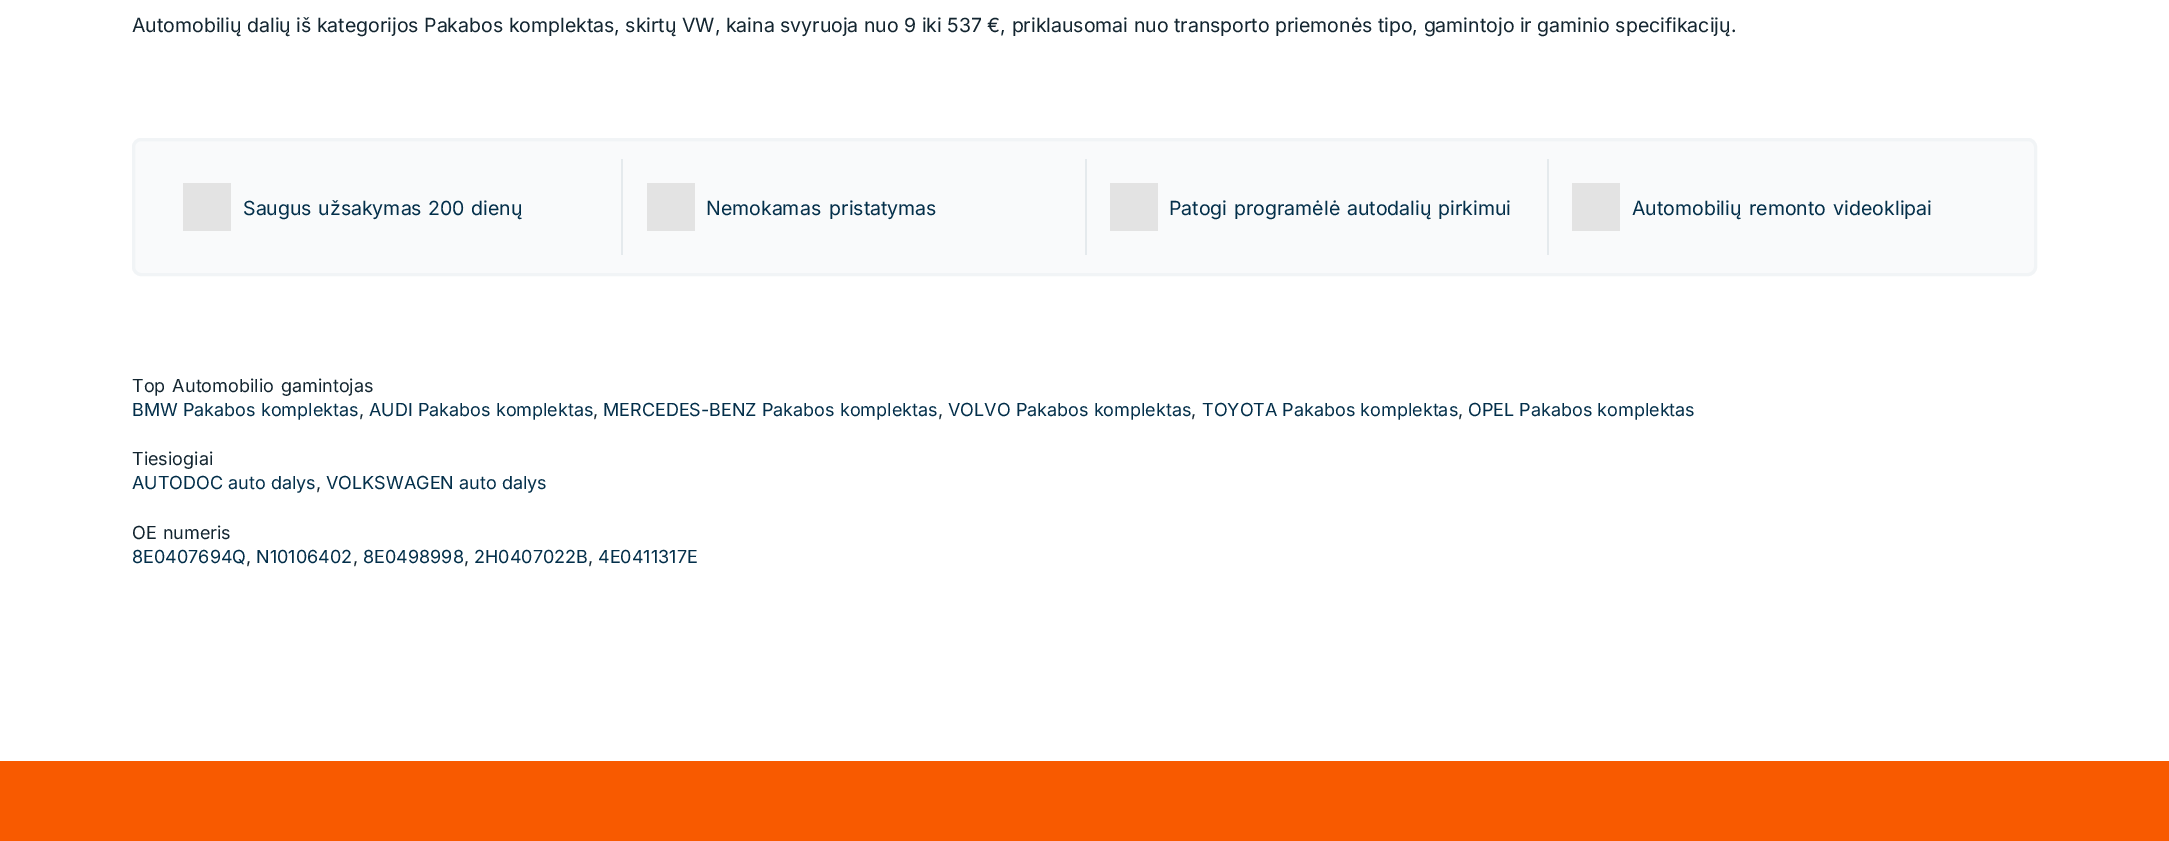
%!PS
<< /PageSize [2169 841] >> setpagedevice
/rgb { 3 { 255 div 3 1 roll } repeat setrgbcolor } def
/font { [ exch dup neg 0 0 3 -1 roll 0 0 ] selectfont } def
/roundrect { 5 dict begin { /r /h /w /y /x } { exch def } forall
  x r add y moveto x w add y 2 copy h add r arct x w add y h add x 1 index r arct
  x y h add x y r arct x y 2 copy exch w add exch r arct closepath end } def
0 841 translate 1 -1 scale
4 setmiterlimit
255 255 255 rgb
0 0 2169 841 rectfill
249 250 251 rgb
133.5 139.5 1902 135 7.5 roundrect gsave fill grestore
241 244 246 rgb
3 setlinewidth
stroke
[
  [621 159 2 96 229 234 237]
  [183 183 48 48 227 227 227]
  [1085 159 2 96 229 234 237]
  [647 183 48 48 227 227 227]
  [1547 159 2 96 229 234 237]
  [1110 183 48 48 227 227 227]
  [1572 183 48 48 227 227 227]
  [0 761 2169 80 248 90 0]
] { aload pop rgb rectfill } forall
/Inter-Regular 19.5 font
19 37 48 rgb
132 32 moveto (Automobilių dalių iš kategorijos Pakabos komplektas, skirtų VW, kaina svyruoja nuo 9 iki 537 €, priklausomai nuo transporto priemonės tipo, gamintojo ir gaminio specifikacijų.) show
3 47 74 rgb
243 215 moveto 1 0 32 (Saugus užsakymas 200 dienų) widthshow
706 215 moveto 3 0 32 (Nemokamas pristatymas) widthshow
1169 215 moveto 1.5 0 32 (Patogi programėlė autodalių pirkimui) widthshow
1632 215 moveto 2 0 32 (Automobilių remonto videoklipai) widthshow
/Inter-Regular 18 font
19 37 48 rgb
132 392 moveto 2 0 32 (Top Automobilio gamintojas) widthshow
3 47 74 rgb
132 416 moveto (BMW Pakabos komplektas) show
19 37 48 rgb
359 416 moveto (,) show
3 47 74 rgb
369 416 moveto (AUDI Pakabos komplektas) show
19 37 48 rgb
593 416 moveto (,) show
3 47 74 rgb
603 416 moveto (MERCEDES-BENZ Pakabos komplektas) show
19 37 48 rgb
938 416 moveto (,) show
3 47 74 rgb
948 416 moveto (VOLVO Pakabos komplektas) show
19 37 48 rgb
1191 416 moveto (,) show
3 47 74 rgb
1202 416 moveto (TOYOTA Pakabos komplektas) show
19 37 48 rgb
1458 416 moveto (,) show
3 47 74 rgb
1468 416 moveto (OPEL Pakabos komplektas) show
19 37 48 rgb
132 465 moveto (Tiesiogiai) show
3 47 74 rgb
132 489 moveto (AUTODOC auto dalys) show
19 37 48 rgb
316 489 moveto (,) show
3 47 74 rgb
326 489 moveto (VOLKSWAGEN auto dalys) show
19 37 48 rgb
132 539 moveto 1 0 32 (ОЕ numeris) widthshow
3 47 74 rgb
132 563 moveto (8E0407694Q) show
19 37 48 rgb
246 563 moveto (,) show
3 47 74 rgb
256 563 moveto (N10106402) show
19 37 48 rgb
353 563 moveto (,) show
3 47 74 rgb
363 563 moveto (8E0498998) show
19 37 48 rgb
464 563 moveto (,) show
3 47 74 rgb
474 563 moveto (2H0407022B) show
19 37 48 rgb
588 563 moveto (,) show
3 47 74 rgb
598 563 moveto (4E0411317E) show
showpage
